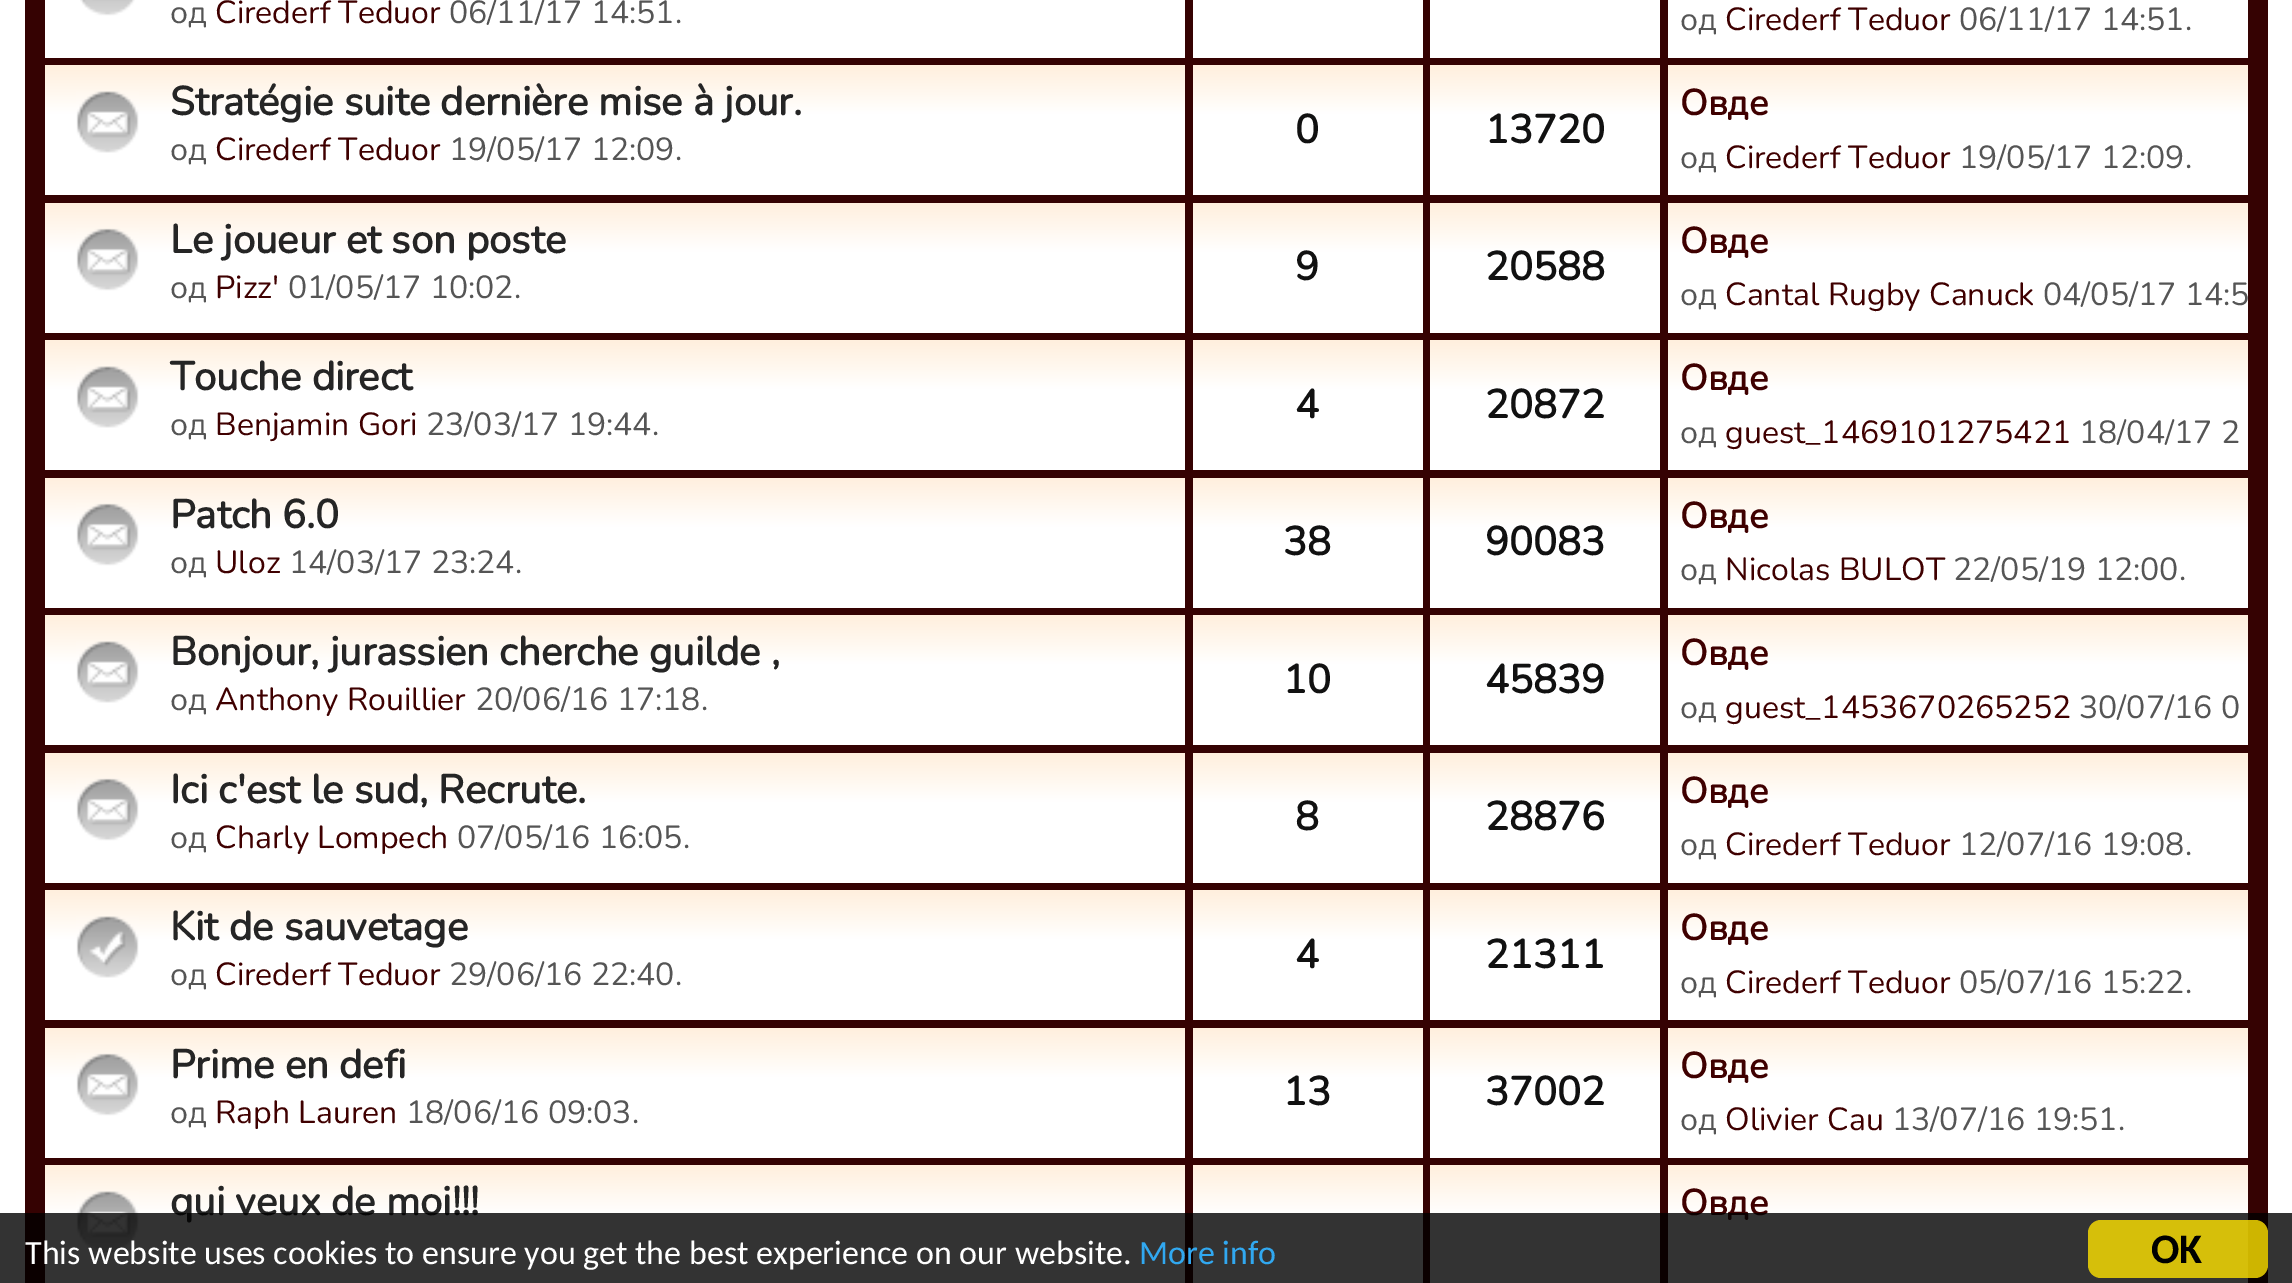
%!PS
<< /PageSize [2292 1283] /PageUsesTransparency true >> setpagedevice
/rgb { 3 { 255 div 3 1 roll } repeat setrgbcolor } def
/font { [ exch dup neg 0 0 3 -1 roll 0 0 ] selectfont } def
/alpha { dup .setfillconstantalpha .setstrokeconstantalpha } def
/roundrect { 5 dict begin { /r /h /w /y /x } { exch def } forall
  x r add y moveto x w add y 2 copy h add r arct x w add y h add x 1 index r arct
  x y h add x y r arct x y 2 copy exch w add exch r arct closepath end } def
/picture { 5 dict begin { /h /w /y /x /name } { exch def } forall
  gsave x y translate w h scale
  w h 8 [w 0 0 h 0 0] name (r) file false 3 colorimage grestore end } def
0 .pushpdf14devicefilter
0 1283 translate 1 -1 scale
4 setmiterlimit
255 255 255 rgb
0 0 2292 1283 rectfill
gsave 25 0 moveto 2268 0 lineto 2268 1283 lineto 25 1283 lineto closepath clip newpath
<< /ShadingType 2 /ColorSpace /DeviceRGB /Coords [1146 -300 1146 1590] /Extend [true true] /Function << /FunctionType 3 /Domain [0 1] /Functions [<< /FunctionType 2 /Domain [0 1] /C0 [0.376 0.173 0.173] /C1 [0.208 0.008 0.008] /N 1 >> << /FunctionType 2 /Domain [0 1] /C0 [0.208 0.008 0.008] /C1 [0.208 0.008 0.008] /N 1 >>] /Bounds [0.03] /Encode [0 1 0 1] >> >> shfill grestore
gsave 45 0 moveto 1185 0 lineto 1185 58 lineto 45 58 lineto closepath clip newpath
<< /ShadingType 2 /ColorSpace /DeviceRGB /Coords [615 -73 615 58] /Extend [true true] /Function << /FunctionType 3 /Domain [0 1] /Functions [<< /FunctionType 2 /Domain [0 1] /C0 [1 0.937 0.867] /C1 [1 1 1] /N 1 >> << /FunctionType 2 /Domain [0 1] /C0 [1 1 1] /C1 [1 1 1] /N 1 >>] /Bounds [0.38] /Encode [0 1 0 1] >> >> shfill grestore
(img/1.rgb) 80 0 55 16 picture
gsave 1193 0 moveto 1423 0 lineto 1423 58 lineto 1193 58 lineto closepath clip newpath
<< /ShadingType 2 /ColorSpace /DeviceRGB /Coords [1308 -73 1308 58] /Extend [true true] /Function << /FunctionType 3 /Domain [0 1] /Functions [<< /FunctionType 2 /Domain [0 1] /C0 [1 0.937 0.867] /C1 [1 1 1] /N 1 >> << /FunctionType 2 /Domain [0 1] /C0 [1 1 1] /C1 [1 1 1] /N 1 >>] /Bounds [0.38] /Encode [0 1 0 1] >> >> shfill grestore
gsave 1430 0 moveto 1660 0 lineto 1660 58 lineto 1430 58 lineto closepath clip newpath
<< /ShadingType 2 /ColorSpace /DeviceRGB /Coords [1545 -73 1545 58] /Extend [true true] /Function << /FunctionType 3 /Domain [0 1] /Functions [<< /FunctionType 2 /Domain [0 1] /C0 [1 0.937 0.867] /C1 [1 1 1] /N 1 >> << /FunctionType 2 /Domain [0 1] /C0 [1 1 1] /C1 [1 1 1] /N 1 >>] /Bounds [0.38] /Encode [0 1 0 1] >> >> shfill grestore
gsave 1668 0 moveto 2248 0 lineto 2248 58 lineto 1668 58 lineto closepath clip newpath
<< /ShadingType 2 /ColorSpace /DeviceRGB /Coords [1958 -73 1958 58] /Extend [true true] /Function << /FunctionType 3 /Domain [0 1] /Functions [<< /FunctionType 2 /Domain [0 1] /C0 [1 0.937 0.867] /C1 [1 1 1] /N 1 >> << /FunctionType 2 /Domain [0 1] /C0 [1 1 1] /C1 [1 1 1] /N 1 >>] /Bounds [0.38] /Encode [0 1 0 1] >> >> shfill grestore
gsave 45 65 moveto 1185 65 lineto 1185 195 lineto 45 195 lineto closepath clip newpath
<< /ShadingType 2 /ColorSpace /DeviceRGB /Coords [615 65 615 195] /Extend [true true] /Function << /FunctionType 3 /Domain [0 1] /Functions [<< /FunctionType 2 /Domain [0 1] /C0 [1 0.937 0.867] /C1 [1 1 1] /N 1 >> << /FunctionType 2 /Domain [0 1] /C0 [1 1 1] /C1 [1 1 1] /N 1 >>] /Bounds [0.38] /Encode [0 1 0 1] >> >> shfill grestore
(img/2.rgb) 76 91 63 62 picture
gsave 1193 65 moveto 1423 65 lineto 1423 195 lineto 1193 195 lineto closepath clip newpath
<< /ShadingType 2 /ColorSpace /DeviceRGB /Coords [1308 65 1308 195] /Extend [true true] /Function << /FunctionType 3 /Domain [0 1] /Functions [<< /FunctionType 2 /Domain [0 1] /C0 [1 0.937 0.867] /C1 [1 1 1] /N 1 >> << /FunctionType 2 /Domain [0 1] /C0 [1 1 1] /C1 [1 1 1] /N 1 >>] /Bounds [0.38] /Encode [0 1 0 1] >> >> shfill grestore
gsave 1430 65 moveto 1660 65 lineto 1660 195 lineto 1430 195 lineto closepath clip newpath
<< /ShadingType 2 /ColorSpace /DeviceRGB /Coords [1545 65 1545 195] /Extend [true true] /Function << /FunctionType 3 /Domain [0 1] /Functions [<< /FunctionType 2 /Domain [0 1] /C0 [1 0.937 0.867] /C1 [1 1 1] /N 1 >> << /FunctionType 2 /Domain [0 1] /C0 [1 1 1] /C1 [1 1 1] /N 1 >>] /Bounds [0.38] /Encode [0 1 0 1] >> >> shfill grestore
gsave 1668 65 moveto 2248 65 lineto 2248 195 lineto 1668 195 lineto closepath clip newpath
<< /ShadingType 2 /ColorSpace /DeviceRGB /Coords [1958 65 1958 195] /Extend [true true] /Function << /FunctionType 3 /Domain [0 1] /Functions [<< /FunctionType 2 /Domain [0 1] /C0 [1 0.937 0.867] /C1 [1 1 1] /N 1 >> << /FunctionType 2 /Domain [0 1] /C0 [1 1 1] /C1 [1 1 1] /N 1 >>] /Bounds [0.38] /Encode [0 1 0 1] >> >> shfill grestore
gsave 45 203 moveto 1185 203 lineto 1185 333 lineto 45 333 lineto closepath clip newpath
<< /ShadingType 2 /ColorSpace /DeviceRGB /Coords [615 202 615 333] /Extend [true true] /Function << /FunctionType 3 /Domain [0 1] /Functions [<< /FunctionType 2 /Domain [0 1] /C0 [1 0.937 0.867] /C1 [1 1 1] /N 1 >> << /FunctionType 2 /Domain [0 1] /C0 [1 1 1] /C1 [1 1 1] /N 1 >>] /Bounds [0.38] /Encode [0 1 0 1] >> >> shfill grestore
(img/3.rgb) 76 228 63 63 picture
gsave 1193 203 moveto 1423 203 lineto 1423 333 lineto 1193 333 lineto closepath clip newpath
<< /ShadingType 2 /ColorSpace /DeviceRGB /Coords [1308 203 1308 333] /Extend [true true] /Function << /FunctionType 3 /Domain [0 1] /Functions [<< /FunctionType 2 /Domain [0 1] /C0 [1 0.937 0.867] /C1 [1 1 1] /N 1 >> << /FunctionType 2 /Domain [0 1] /C0 [1 1 1] /C1 [1 1 1] /N 1 >>] /Bounds [0.38] /Encode [0 1 0 1] >> >> shfill grestore
gsave 1430 203 moveto 1660 203 lineto 1660 333 lineto 1430 333 lineto closepath clip newpath
<< /ShadingType 2 /ColorSpace /DeviceRGB /Coords [1545 203 1545 333] /Extend [true true] /Function << /FunctionType 3 /Domain [0 1] /Functions [<< /FunctionType 2 /Domain [0 1] /C0 [1 0.937 0.867] /C1 [1 1 1] /N 1 >> << /FunctionType 2 /Domain [0 1] /C0 [1 1 1] /C1 [1 1 1] /N 1 >>] /Bounds [0.38] /Encode [0 1 0 1] >> >> shfill grestore
gsave 1668 203 moveto 2248 203 lineto 2248 333 lineto 1668 333 lineto closepath clip newpath
<< /ShadingType 2 /ColorSpace /DeviceRGB /Coords [1958 202 1958 333] /Extend [true true] /Function << /FunctionType 3 /Domain [0 1] /Functions [<< /FunctionType 2 /Domain [0 1] /C0 [1 0.937 0.867] /C1 [1 1 1] /N 1 >> << /FunctionType 2 /Domain [0 1] /C0 [1 1 1] /C1 [1 1 1] /N 1 >>] /Bounds [0.38] /Encode [0 1 0 1] >> >> shfill grestore
gsave 45 340 moveto 1185 340 lineto 1185 470 lineto 45 470 lineto closepath clip newpath
<< /ShadingType 2 /ColorSpace /DeviceRGB /Coords [615 340 615 470] /Extend [true true] /Function << /FunctionType 3 /Domain [0 1] /Functions [<< /FunctionType 2 /Domain [0 1] /C0 [1 0.937 0.867] /C1 [1 1 1] /N 1 >> << /FunctionType 2 /Domain [0 1] /C0 [1 1 1] /C1 [1 1 1] /N 1 >>] /Bounds [0.38] /Encode [0 1 0 1] >> >> shfill grestore
(img/2.rgb) 76 366 63 62 picture
gsave 1193 340 moveto 1423 340 lineto 1423 470 lineto 1193 470 lineto closepath clip newpath
<< /ShadingType 2 /ColorSpace /DeviceRGB /Coords [1308 340 1308 470] /Extend [true true] /Function << /FunctionType 3 /Domain [0 1] /Functions [<< /FunctionType 2 /Domain [0 1] /C0 [1 0.937 0.867] /C1 [1 1 1] /N 1 >> << /FunctionType 2 /Domain [0 1] /C0 [1 1 1] /C1 [1 1 1] /N 1 >>] /Bounds [0.38] /Encode [0 1 0 1] >> >> shfill grestore
gsave 1430 340 moveto 1660 340 lineto 1660 470 lineto 1430 470 lineto closepath clip newpath
<< /ShadingType 2 /ColorSpace /DeviceRGB /Coords [1545 340 1545 470] /Extend [true true] /Function << /FunctionType 3 /Domain [0 1] /Functions [<< /FunctionType 2 /Domain [0 1] /C0 [1 0.937 0.867] /C1 [1 1 1] /N 1 >> << /FunctionType 2 /Domain [0 1] /C0 [1 1 1] /C1 [1 1 1] /N 1 >>] /Bounds [0.38] /Encode [0 1 0 1] >> >> shfill grestore
gsave 1668 340 moveto 2248 340 lineto 2248 470 lineto 1668 470 lineto closepath clip newpath
<< /ShadingType 2 /ColorSpace /DeviceRGB /Coords [1958 340 1958 470] /Extend [true true] /Function << /FunctionType 3 /Domain [0 1] /Functions [<< /FunctionType 2 /Domain [0 1] /C0 [1 0.937 0.867] /C1 [1 1 1] /N 1 >> << /FunctionType 2 /Domain [0 1] /C0 [1 1 1] /C1 [1 1 1] /N 1 >>] /Bounds [0.38] /Encode [0 1 0 1] >> >> shfill grestore
gsave 45 478 moveto 1185 478 lineto 1185 608 lineto 45 608 lineto closepath clip newpath
<< /ShadingType 2 /ColorSpace /DeviceRGB /Coords [615 477 615 608] /Extend [true true] /Function << /FunctionType 3 /Domain [0 1] /Functions [<< /FunctionType 2 /Domain [0 1] /C0 [1 0.937 0.867] /C1 [1 1 1] /N 1 >> << /FunctionType 2 /Domain [0 1] /C0 [1 1 1] /C1 [1 1 1] /N 1 >>] /Bounds [0.38] /Encode [0 1 0 1] >> >> shfill grestore
(img/3.rgb) 76 503 63 63 picture
gsave 1193 478 moveto 1423 478 lineto 1423 608 lineto 1193 608 lineto closepath clip newpath
<< /ShadingType 2 /ColorSpace /DeviceRGB /Coords [1308 478 1308 608] /Extend [true true] /Function << /FunctionType 3 /Domain [0 1] /Functions [<< /FunctionType 2 /Domain [0 1] /C0 [1 0.937 0.867] /C1 [1 1 1] /N 1 >> << /FunctionType 2 /Domain [0 1] /C0 [1 1 1] /C1 [1 1 1] /N 1 >>] /Bounds [0.38] /Encode [0 1 0 1] >> >> shfill grestore
gsave 1430 478 moveto 1660 478 lineto 1660 608 lineto 1430 608 lineto closepath clip newpath
<< /ShadingType 2 /ColorSpace /DeviceRGB /Coords [1545 478 1545 608] /Extend [true true] /Function << /FunctionType 3 /Domain [0 1] /Functions [<< /FunctionType 2 /Domain [0 1] /C0 [1 0.937 0.867] /C1 [1 1 1] /N 1 >> << /FunctionType 2 /Domain [0 1] /C0 [1 1 1] /C1 [1 1 1] /N 1 >>] /Bounds [0.38] /Encode [0 1 0 1] >> >> shfill grestore
gsave 1668 478 moveto 2248 478 lineto 2248 608 lineto 1668 608 lineto closepath clip newpath
<< /ShadingType 2 /ColorSpace /DeviceRGB /Coords [1958 478 1958 608] /Extend [true true] /Function << /FunctionType 3 /Domain [0 1] /Functions [<< /FunctionType 2 /Domain [0 1] /C0 [1 0.937 0.867] /C1 [1 1 1] /N 1 >> << /FunctionType 2 /Domain [0 1] /C0 [1 1 1] /C1 [1 1 1] /N 1 >>] /Bounds [0.38] /Encode [0 1 0 1] >> >> shfill grestore
gsave 45 615 moveto 1185 615 lineto 1185 745 lineto 45 745 lineto closepath clip newpath
<< /ShadingType 2 /ColorSpace /DeviceRGB /Coords [615 615 615 745] /Extend [true true] /Function << /FunctionType 3 /Domain [0 1] /Functions [<< /FunctionType 2 /Domain [0 1] /C0 [1 0.937 0.867] /C1 [1 1 1] /N 1 >> << /FunctionType 2 /Domain [0 1] /C0 [1 1 1] /C1 [1 1 1] /N 1 >>] /Bounds [0.38] /Encode [0 1 0 1] >> >> shfill grestore
(img/2.rgb) 76 641 63 62 picture
gsave 1193 615 moveto 1423 615 lineto 1423 745 lineto 1193 745 lineto closepath clip newpath
<< /ShadingType 2 /ColorSpace /DeviceRGB /Coords [1308 615 1308 745] /Extend [true true] /Function << /FunctionType 3 /Domain [0 1] /Functions [<< /FunctionType 2 /Domain [0 1] /C0 [1 0.937 0.867] /C1 [1 1 1] /N 1 >> << /FunctionType 2 /Domain [0 1] /C0 [1 1 1] /C1 [1 1 1] /N 1 >>] /Bounds [0.38] /Encode [0 1 0 1] >> >> shfill grestore
gsave 1430 615 moveto 1660 615 lineto 1660 745 lineto 1430 745 lineto closepath clip newpath
<< /ShadingType 2 /ColorSpace /DeviceRGB /Coords [1545 615 1545 745] /Extend [true true] /Function << /FunctionType 3 /Domain [0 1] /Functions [<< /FunctionType 2 /Domain [0 1] /C0 [1 0.937 0.867] /C1 [1 1 1] /N 1 >> << /FunctionType 2 /Domain [0 1] /C0 [1 1 1] /C1 [1 1 1] /N 1 >>] /Bounds [0.38] /Encode [0 1 0 1] >> >> shfill grestore
gsave 1668 615 moveto 2248 615 lineto 2248 745 lineto 1668 745 lineto closepath clip newpath
<< /ShadingType 2 /ColorSpace /DeviceRGB /Coords [1958 615 1958 745] /Extend [true true] /Function << /FunctionType 3 /Domain [0 1] /Functions [<< /FunctionType 2 /Domain [0 1] /C0 [1 0.937 0.867] /C1 [1 1 1] /N 1 >> << /FunctionType 2 /Domain [0 1] /C0 [1 1 1] /C1 [1 1 1] /N 1 >>] /Bounds [0.38] /Encode [0 1 0 1] >> >> shfill grestore
gsave 45 753 moveto 1185 753 lineto 1185 883 lineto 45 883 lineto closepath clip newpath
<< /ShadingType 2 /ColorSpace /DeviceRGB /Coords [615 753 615 883] /Extend [true true] /Function << /FunctionType 3 /Domain [0 1] /Functions [<< /FunctionType 2 /Domain [0 1] /C0 [1 0.937 0.867] /C1 [1 1 1] /N 1 >> << /FunctionType 2 /Domain [0 1] /C0 [1 1 1] /C1 [1 1 1] /N 1 >>] /Bounds [0.38] /Encode [0 1 0 1] >> >> shfill grestore
(img/4.rgb) 76 778 63 63 picture
gsave 1193 753 moveto 1423 753 lineto 1423 883 lineto 1193 883 lineto closepath clip newpath
<< /ShadingType 2 /ColorSpace /DeviceRGB /Coords [1308 753 1308 883] /Extend [true true] /Function << /FunctionType 3 /Domain [0 1] /Functions [<< /FunctionType 2 /Domain [0 1] /C0 [1 0.937 0.867] /C1 [1 1 1] /N 1 >> << /FunctionType 2 /Domain [0 1] /C0 [1 1 1] /C1 [1 1 1] /N 1 >>] /Bounds [0.38] /Encode [0 1 0 1] >> >> shfill grestore
gsave 1430 753 moveto 1660 753 lineto 1660 883 lineto 1430 883 lineto closepath clip newpath
<< /ShadingType 2 /ColorSpace /DeviceRGB /Coords [1545 753 1545 883] /Extend [true true] /Function << /FunctionType 3 /Domain [0 1] /Functions [<< /FunctionType 2 /Domain [0 1] /C0 [1 0.937 0.867] /C1 [1 1 1] /N 1 >> << /FunctionType 2 /Domain [0 1] /C0 [1 1 1] /C1 [1 1 1] /N 1 >>] /Bounds [0.38] /Encode [0 1 0 1] >> >> shfill grestore
gsave 1668 753 moveto 2248 753 lineto 2248 883 lineto 1668 883 lineto closepath clip newpath
<< /ShadingType 2 /ColorSpace /DeviceRGB /Coords [1958 753 1958 883] /Extend [true true] /Function << /FunctionType 3 /Domain [0 1] /Functions [<< /FunctionType 2 /Domain [0 1] /C0 [1 0.937 0.867] /C1 [1 1 1] /N 1 >> << /FunctionType 2 /Domain [0 1] /C0 [1 1 1] /C1 [1 1 1] /N 1 >>] /Bounds [0.38] /Encode [0 1 0 1] >> >> shfill grestore
gsave 45 890 moveto 1185 890 lineto 1185 1020 lineto 45 1020 lineto closepath clip newpath
<< /ShadingType 2 /ColorSpace /DeviceRGB /Coords [615 890 615 1020] /Extend [true true] /Function << /FunctionType 3 /Domain [0 1] /Functions [<< /FunctionType 2 /Domain [0 1] /C0 [1 0.937 0.867] /C1 [1 1 1] /N 1 >> << /FunctionType 2 /Domain [0 1] /C0 [1 1 1] /C1 [1 1 1] /N 1 >>] /Bounds [0.38] /Encode [0 1 0 1] >> >> shfill grestore
(img/5.rgb) 76 916 63 62 picture
gsave 1193 890 moveto 1423 890 lineto 1423 1020 lineto 1193 1020 lineto closepath clip newpath
<< /ShadingType 2 /ColorSpace /DeviceRGB /Coords [1308 890 1308 1020] /Extend [true true] /Function << /FunctionType 3 /Domain [0 1] /Functions [<< /FunctionType 2 /Domain [0 1] /C0 [1 0.937 0.867] /C1 [1 1 1] /N 1 >> << /FunctionType 2 /Domain [0 1] /C0 [1 1 1] /C1 [1 1 1] /N 1 >>] /Bounds [0.38] /Encode [0 1 0 1] >> >> shfill grestore
gsave 1430 890 moveto 1660 890 lineto 1660 1020 lineto 1430 1020 lineto closepath clip newpath
<< /ShadingType 2 /ColorSpace /DeviceRGB /Coords [1545 890 1545 1020] /Extend [true true] /Function << /FunctionType 3 /Domain [0 1] /Functions [<< /FunctionType 2 /Domain [0 1] /C0 [1 0.937 0.867] /C1 [1 1 1] /N 1 >> << /FunctionType 2 /Domain [0 1] /C0 [1 1 1] /C1 [1 1 1] /N 1 >>] /Bounds [0.38] /Encode [0 1 0 1] >> >> shfill grestore
gsave 1668 890 moveto 2248 890 lineto 2248 1020 lineto 1668 1020 lineto closepath clip newpath
<< /ShadingType 2 /ColorSpace /DeviceRGB /Coords [1958 890 1958 1020] /Extend [true true] /Function << /FunctionType 3 /Domain [0 1] /Functions [<< /FunctionType 2 /Domain [0 1] /C0 [1 0.937 0.867] /C1 [1 1 1] /N 1 >> << /FunctionType 2 /Domain [0 1] /C0 [1 1 1] /C1 [1 1 1] /N 1 >>] /Bounds [0.38] /Encode [0 1 0 1] >> >> shfill grestore
gsave 45 1028 moveto 1185 1028 lineto 1185 1158 lineto 45 1158 lineto closepath clip newpath
<< /ShadingType 2 /ColorSpace /DeviceRGB /Coords [615 1028 615 1158] /Extend [true true] /Function << /FunctionType 3 /Domain [0 1] /Functions [<< /FunctionType 2 /Domain [0 1] /C0 [1 0.937 0.867] /C1 [1 1 1] /N 1 >> << /FunctionType 2 /Domain [0 1] /C0 [1 1 1] /C1 [1 1 1] /N 1 >>] /Bounds [0.38] /Encode [0 1 0 1] >> >> shfill grestore
(img/4.rgb) 76 1053 63 63 picture
gsave 1193 1028 moveto 1423 1028 lineto 1423 1158 lineto 1193 1158 lineto closepath clip newpath
<< /ShadingType 2 /ColorSpace /DeviceRGB /Coords [1308 1028 1308 1158] /Extend [true true] /Function << /FunctionType 3 /Domain [0 1] /Functions [<< /FunctionType 2 /Domain [0 1] /C0 [1 0.937 0.867] /C1 [1 1 1] /N 1 >> << /FunctionType 2 /Domain [0 1] /C0 [1 1 1] /C1 [1 1 1] /N 1 >>] /Bounds [0.38] /Encode [0 1 0 1] >> >> shfill grestore
gsave 1430 1028 moveto 1660 1028 lineto 1660 1158 lineto 1430 1158 lineto closepath clip newpath
<< /ShadingType 2 /ColorSpace /DeviceRGB /Coords [1545 1028 1545 1158] /Extend [true true] /Function << /FunctionType 3 /Domain [0 1] /Functions [<< /FunctionType 2 /Domain [0 1] /C0 [1 0.937 0.867] /C1 [1 1 1] /N 1 >> << /FunctionType 2 /Domain [0 1] /C0 [1 1 1] /C1 [1 1 1] /N 1 >>] /Bounds [0.38] /Encode [0 1 0 1] >> >> shfill grestore
gsave 1668 1028 moveto 2248 1028 lineto 2248 1158 lineto 1668 1158 lineto closepath clip newpath
<< /ShadingType 2 /ColorSpace /DeviceRGB /Coords [1958 1028 1958 1158] /Extend [true true] /Function << /FunctionType 3 /Domain [0 1] /Functions [<< /FunctionType 2 /Domain [0 1] /C0 [1 0.937 0.867] /C1 [1 1 1] /N 1 >> << /FunctionType 2 /Domain [0 1] /C0 [1 1 1] /C1 [1 1 1] /N 1 >>] /Bounds [0.38] /Encode [0 1 0 1] >> >> shfill grestore
gsave 45 1165 moveto 1185 1165 lineto 1185 1283 lineto 45 1283 lineto closepath clip newpath
<< /ShadingType 2 /ColorSpace /DeviceRGB /Coords [615 1165 615 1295] /Extend [true true] /Function << /FunctionType 3 /Domain [0 1] /Functions [<< /FunctionType 2 /Domain [0 1] /C0 [1 0.937 0.867] /C1 [1 1 1] /N 1 >> << /FunctionType 2 /Domain [0 1] /C0 [1 1 1] /C1 [1 1 1] /N 1 >>] /Bounds [0.38] /Encode [0 1 0 1] >> >> shfill grestore
(img/2.rgb) 76 1191 63 62 picture
gsave 1193 1165 moveto 1423 1165 lineto 1423 1283 lineto 1193 1283 lineto closepath clip newpath
<< /ShadingType 2 /ColorSpace /DeviceRGB /Coords [1308 1165 1308 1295] /Extend [true true] /Function << /FunctionType 3 /Domain [0 1] /Functions [<< /FunctionType 2 /Domain [0 1] /C0 [1 0.937 0.867] /C1 [1 1 1] /N 1 >> << /FunctionType 2 /Domain [0 1] /C0 [1 1 1] /C1 [1 1 1] /N 1 >>] /Bounds [0.38] /Encode [0 1 0 1] >> >> shfill grestore
gsave 1430 1165 moveto 1660 1165 lineto 1660 1283 lineto 1430 1283 lineto closepath clip newpath
<< /ShadingType 2 /ColorSpace /DeviceRGB /Coords [1545 1165 1545 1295] /Extend [true true] /Function << /FunctionType 3 /Domain [0 1] /Functions [<< /FunctionType 2 /Domain [0 1] /C0 [1 0.937 0.867] /C1 [1 1 1] /N 1 >> << /FunctionType 2 /Domain [0 1] /C0 [1 1 1] /C1 [1 1 1] /N 1 >>] /Bounds [0.38] /Encode [0 1 0 1] >> >> shfill grestore
gsave 1668 1165 moveto 2248 1165 lineto 2248 1283 lineto 1668 1283 lineto closepath clip newpath
<< /ShadingType 2 /ColorSpace /DeviceRGB /Coords [1958 1165 1958 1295] /Extend [true true] /Function << /FunctionType 3 /Domain [0 1] /Functions [<< /FunctionType 2 /Domain [0 1] /C0 [1 0.937 0.867] /C1 [1 1 1] /N 1 >> << /FunctionType 2 /Domain [0 1] /C0 [1 1 1] /C1 [1 1 1] /N 1 >>] /Bounds [0.38] /Encode [0 1 0 1] >> >> shfill grestore
/Nunito-ExtraLight 32 font
85 85 85 rgb
170 23 moveto (од) show
63 0 0 rgb
215 23 moveto (Cirederf Teduor) show
85 85 85 rgb
449 23 moveto (06/11/17 14:51.) show
1680 30 moveto (од) show
63 0 0 rgb
1725 30 moveto (Cirederf Teduor) show
85 85 85 rgb
1959 30 moveto (06/11/17 14:51.) show
/Nunito-Bold 40 font
37 37 37 rgb
170 115 moveto (Stratégie suite dernière mise à jour.) show
/Nunito-ExtraLight 32 font
85 85 85 rgb
170 160 moveto (од) show
63 0 0 rgb
215 160 moveto (Cirederf Teduor) show
85 85 85 rgb
449 160 moveto (19/05/17 12:09.) show
/Nunito-Bold 40 font
17 17 17 rgb
1295 143 moveto (0) show
1485 143 moveto (13720) show
/Nunito-Bold 36 font
63 0 0 rgb
1680 115 moveto (Овде) show
/Nunito-ExtraLight 32 font
85 85 85 rgb
1680 168 moveto (од) show
63 0 0 rgb
1725 168 moveto (Cirederf Teduor) show
85 85 85 rgb
1959 168 moveto (19/05/17 12:09.) show
/Nunito-Bold 40 font
37 37 37 rgb
170 253 moveto (Le joueur et son poste) show
/Nunito-ExtraLight 32 font
85 85 85 rgb
170 298 moveto (од) show
63 0 0 rgb
215 298 moveto (Pizz') show
85 85 85 rgb
288 298 moveto (01/05/17 10:02.) show
/Nunito-Bold 40 font
17 17 17 rgb
1295 280 moveto (9) show
1485 280 moveto (20588) show
/Nunito-Bold 36 font
63 0 0 rgb
1680 253 moveto (Овде) show
/Nunito-ExtraLight 32 font
85 85 85 rgb
1680 305 moveto (од) show
63 0 0 rgb
1725 305 moveto (Cantal Rugby Canuck) show
85 85 85 rgb
2043 305 moveto (04/05/17 14:5) show
/Nunito-Bold 40 font
37 37 37 rgb
170 390 moveto (Touche direct) show
/Nunito-ExtraLight 32 font
85 85 85 rgb
426 435 moveto (23/03/17 19:44.) show
170 435 moveto (од) show
63 0 0 rgb
215 435 moveto (Benjamin Gori) show
/Nunito-Bold 40 font
17 17 17 rgb
1295 418 moveto (4) show
1485 418 moveto (20872) show
/Nunito-Bold 36 font
63 0 0 rgb
1680 390 moveto (Овде) show
/Nunito-ExtraLight 32 font
85 85 85 rgb
1680 443 moveto (од) show
63 0 0 rgb
1725 443 moveto (guest_1469101275421) show
85 85 85 rgb
2079 443 moveto (18/04/17 2) show
/Nunito-Bold 40 font
37 37 37 rgb
170 528 moveto (Patch 6.0) show
/Nunito-ExtraLight 32 font
85 85 85 rgb
289 573 moveto (14/03/17 23:24.) show
170 573 moveto (од) show
63 0 0 rgb
215 573 moveto (Uloz) show
/Nunito-Bold 40 font
17 17 17 rgb
1283 555 moveto (38) show
1485 555 moveto (90083) show
/Nunito-Bold 36 font
63 0 0 rgb
1680 528 moveto (Овде) show
/Nunito-ExtraLight 32 font
85 85 85 rgb
1680 580 moveto (од) show
63 0 0 rgb
1725 580 moveto (Nicolas BULOT) show
85 85 85 rgb
1953 580 moveto (22/05/19 12:00.) show
/Nunito-Bold 40 font
37 37 37 rgb
170 665 moveto (Bonjour, jurassien cherche guilde ,) show
/Nunito-ExtraLight 32 font
85 85 85 rgb
170 710 moveto (од) show
63 0 0 rgb
215 710 moveto (Anthony Rouillier) show
85 85 85 rgb
475 710 moveto (20/06/16 17:18.) show
/Nunito-Bold 40 font
17 17 17 rgb
1283 693 moveto (10) show
1485 693 moveto (45839) show
/Nunito-Bold 36 font
63 0 0 rgb
1680 665 moveto (Овде) show
/Nunito-ExtraLight 32 font
85 85 85 rgb
1680 718 moveto (од) show
63 0 0 rgb
1725 718 moveto (guest_1453670265252) show
85 85 85 rgb
2079 718 moveto (30/07/16 0) show
/Nunito-Bold 40 font
37 37 37 rgb
170 803 moveto (Ici c'est le sud, Recrute.) show
/Nunito-ExtraLight 32 font
85 85 85 rgb
170 848 moveto (од) show
63 0 0 rgb
215 848 moveto (Charly Lompech) show
85 85 85 rgb
457 848 moveto (07/05/16 16:05.) show
/Nunito-Bold 40 font
17 17 17 rgb
1295 830 moveto (8) show
1485 830 moveto (28876) show
/Nunito-Bold 36 font
63 0 0 rgb
1680 803 moveto (Овде) show
/Nunito-ExtraLight 32 font
85 85 85 rgb
1680 855 moveto (од) show
63 0 0 rgb
1725 855 moveto (Cirederf Teduor) show
85 85 85 rgb
1959 855 moveto (12/07/16 19:08.) show
/Nunito-Bold 40 font
37 37 37 rgb
170 940 moveto (Kit de sauvetage) show
/Nunito-ExtraLight 32 font
85 85 85 rgb
449 985 moveto (29/06/16 22:40.) show
170 985 moveto (од) show
63 0 0 rgb
215 985 moveto (Cirederf Teduor) show
/Nunito-Bold 40 font
17 17 17 rgb
1295 968 moveto (4) show
1485 968 moveto (21311) show
/Nunito-Bold 36 font
63 0 0 rgb
1680 940 moveto (Овде) show
/Nunito-ExtraLight 32 font
85 85 85 rgb
1680 993 moveto (од) show
63 0 0 rgb
1725 993 moveto (Cirederf Teduor) show
85 85 85 rgb
1959 993 moveto (05/07/16 15:22.) show
/Nunito-Bold 40 font
37 37 37 rgb
170 1078 moveto (Prime en defi) show
/Nunito-ExtraLight 32 font
85 85 85 rgb
406 1123 moveto (18/06/16 09:03.) show
170 1123 moveto (од) show
63 0 0 rgb
215 1123 moveto (Raph Lauren) show
/Nunito-Bold 40 font
17 17 17 rgb
1283 1105 moveto (13) show
1485 1105 moveto (37002) show
/Nunito-Bold 36 font
63 0 0 rgb
1680 1078 moveto (Овде) show
/Nunito-ExtraLight 32 font
85 85 85 rgb
1680 1130 moveto (од) show
63 0 0 rgb
1725 1130 moveto (Olivier Cau) show
85 85 85 rgb
1892 1130 moveto (13/07/16 19:51.) show
/Nunito-Bold 40 font
37 37 37 rgb
170 1215 moveto (qui veux de moi!!!) show
/Nunito-Bold 36 font
63 0 0 rgb
1680 1215 moveto (Овде) show
0.8 alpha
0 0 0 rgb
0 1213 2292 70 rectfill
/Carlito-Regular 34 font
1 alpha
255 255 255 rgb
25 1264 moveto (This website uses cookies to ensure you get the best experience on our website.) show
49 168 240 rgb
1139 1264 moveto (More info) show
0.8 alpha
255 226 0 rgb
2088 1220 180 58 13 roundrect fill
/Carlito-Bold 42 font
1 alpha
0 0 0 rgb
2151 1263 moveto (OK) show
.poppdf14devicefilter showpage
